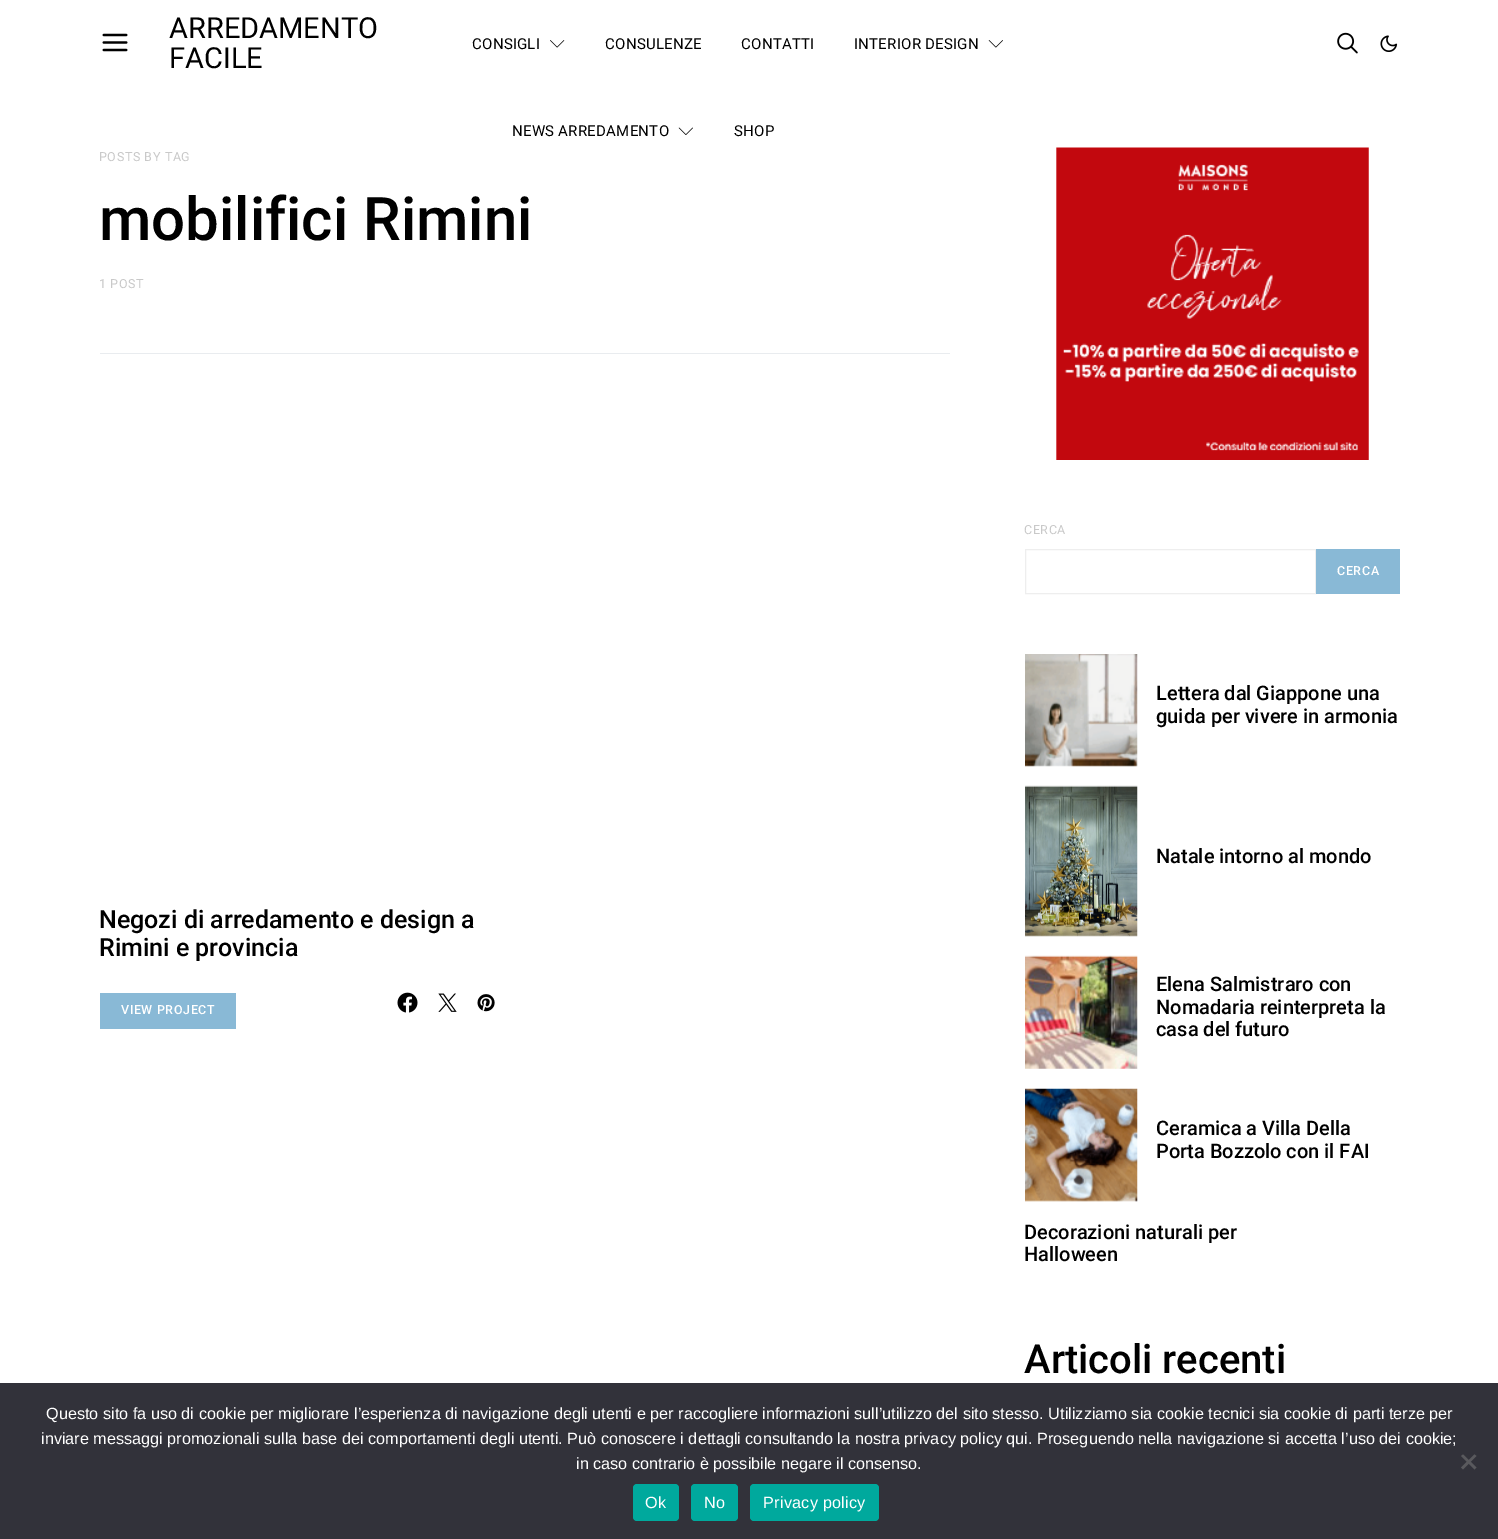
%!PS
<< /PageSize [1498 1539] >> setpagedevice
/rgb { 3 { 255 div 3 1 roll } repeat setrgbcolor } def
/font { [ exch dup neg 0 0 3 -1 roll 0 0 ] selectfont } def
/roundrect { 5 dict begin { /r /h /w /y /x } { exch def } forall
  x r add y moveto x w add y 2 copy h add r arct x w add y h add x 1 index r arct
  x y h add x y r arct x y 2 copy exch w add exch r arct closepath end } def
/picture { 5 dict begin { /h /w /y /x /name } { exch def } forall
  gsave x y translate w h scale
  w h 8 [w 0 0 h 0 0] name (r) file false 3 colorimage grestore end } def
0 1539 translate 1 -1 scale
4 setmiterlimit
255 255 255 rgb
0 0 1498 1539 rectfill
(img/1.rgb) 102 33 26 19 picture
(img/2.rgb) 550 40 15 8 picture
(img/3.rgb) 988 40 15 8 picture
(img/4.rgb) 678 127 15 8 picture
(img/5.rgb) 1337 32 21 22 picture
(img/6.rgb) 1380 35 18 17 picture
233 236 239 rgb
100 353 850 1 rectfill
137 185 214 rgb
100 993 136 36 rectfill
(img/7.rgb) 397 992 21 21 picture
(img/8.rgb) 438 993 19 19 picture
(img/9.rgb) 477 994 18 18 picture
(img/10.rgb) 1056 147 313 313 picture
238 238 238 rgb
1025.5 549.5 290 44 rectstroke
137 185 214 rgb
1316 549 84 45 rectfill
(img/11.rgb) 1025 654 113 113 picture
(img/12.rgb) 1025 785 113 152 picture
(img/13.rgb) 1025 955 113 114 picture
(img/14.rgb) 1025 1088 113 114 picture
50 50 58 rgb
0 1383 1498 156 rectfill
89 89 93 rgb
1474.5 1454.5 moveto 1476.5 1456 lineto 1463 1469.5 lineto 1461 1467.5 lineto closepath fill
1461 1456 moveto 1463 1454.5 lineto 1476.5 1467.5 lineto 1474.5 1469.5 lineto closepath fill
0 169 157 rgb
633 1484 46 37 4 roundrect fill
691 1484 47 37 4 roundrect fill
750 1484 129 37 4 roundrect fill
/Roboto-Regular 29 font
0 0 0 rgb
169 38 moveto (ARREDAMENTO) show
169 68 moveto (FACILE) show
/Roboto-Regular 15 font
472 49 moveto 0.25 0 (CONSIGLI) ashow
605 49 moveto 0.25 0 (CONSULENZE) ashow
741 49 moveto 0.25 0 (CONTATTI) ashow
854 49 moveto 0.25 0 (INTERIOR DESIGN) ashow
512 136 moveto 0.25 0 (NEWS ARREDAMENTO) ashow
734 136 moveto 0.25 0 (SHOP) ashow
/Roboto-Regular 12.5 font
201 201 201 rgb
99 161 moveto 0.6 0 (POSTS BY TAG) ashow
/Roboto-Medium 60 font
0 0 0 rgb
99 240 moveto (mobilifici Rimini) show
/Roboto-Regular 12.5 font
201 201 201 rgb
99 288 moveto 0.6 0 (1 POST) ashow
/Roboto-Medium 25 font
0 0 0 rgb
99 928 moveto (Negozi di arredamento e design a) show
99 956 moveto (Rimini e provincia) show
/Roboto-Medium 12.5 font
255 255 255 rgb
121 1014 moveto 0.6 0 (VIEW PROJECT) ashow
/Roboto-Regular 12.5 font
201 201 201 rgb
1024 534 moveto 0.6 0 (CERCA) ashow
/Roboto-Medium 12.5 font
255 255 255 rgb
1337 575 moveto 0.6 0 (CERCA) ashow
/Roboto-Medium 20 font
0 0 0 rgb
[
  [(Lettera dal Giappone una) 1156 700]
  [(guida per vivere in armonia) 1156 723]
  [(Natale intorno al mondo) 1156 863]
  [(Elena Salmistraro con) 1156 991]
  [(Nomadaria reinterpreta la) 1156 1014]
  [(casa del futuro) 1156 1036]
  [(Ceramica a Villa Della) 1156 1135]
  [(Porta Bozzolo con il FAI) 1156 1158]
  [(Decorazioni naturali per) 1024 1239]
  [(Halloween) 1024 1261]
] { aload pop moveto show } forall
/Roboto-Medium 40 font
1024 1373 moveto (Articoli recenti) show
/LiberationSans-Regular 16.25 font
255 255 255 rgb
[
  [(Questo sito fa uso di cookie per migliorare l’esperienza di navigazione degli utenti e per raccogliere informazioni sull’utilizzo del sito stesso. Utilizziamo sia cookie tecnici sia cookie di parti terze per) 46 1419]
  [(inviare messaggi promozionali sulla base dei comportamenti degli utenti. Può conoscere i dettagli consultando la nostra privacy policy qui. Proseguendo nella navigazione si accetta l’uso dei cookie;) 41 1444]
  [(in caso contrario è possibile negare il consenso.) 576 1469]
] { aload pop moveto show } forall
645 1508 moveto 0.25 0 (Ok) ashow
704 1508 moveto 0.25 0 (No) ashow
763 1508 moveto 0.25 0 (Privacy policy) ashow
showpage
